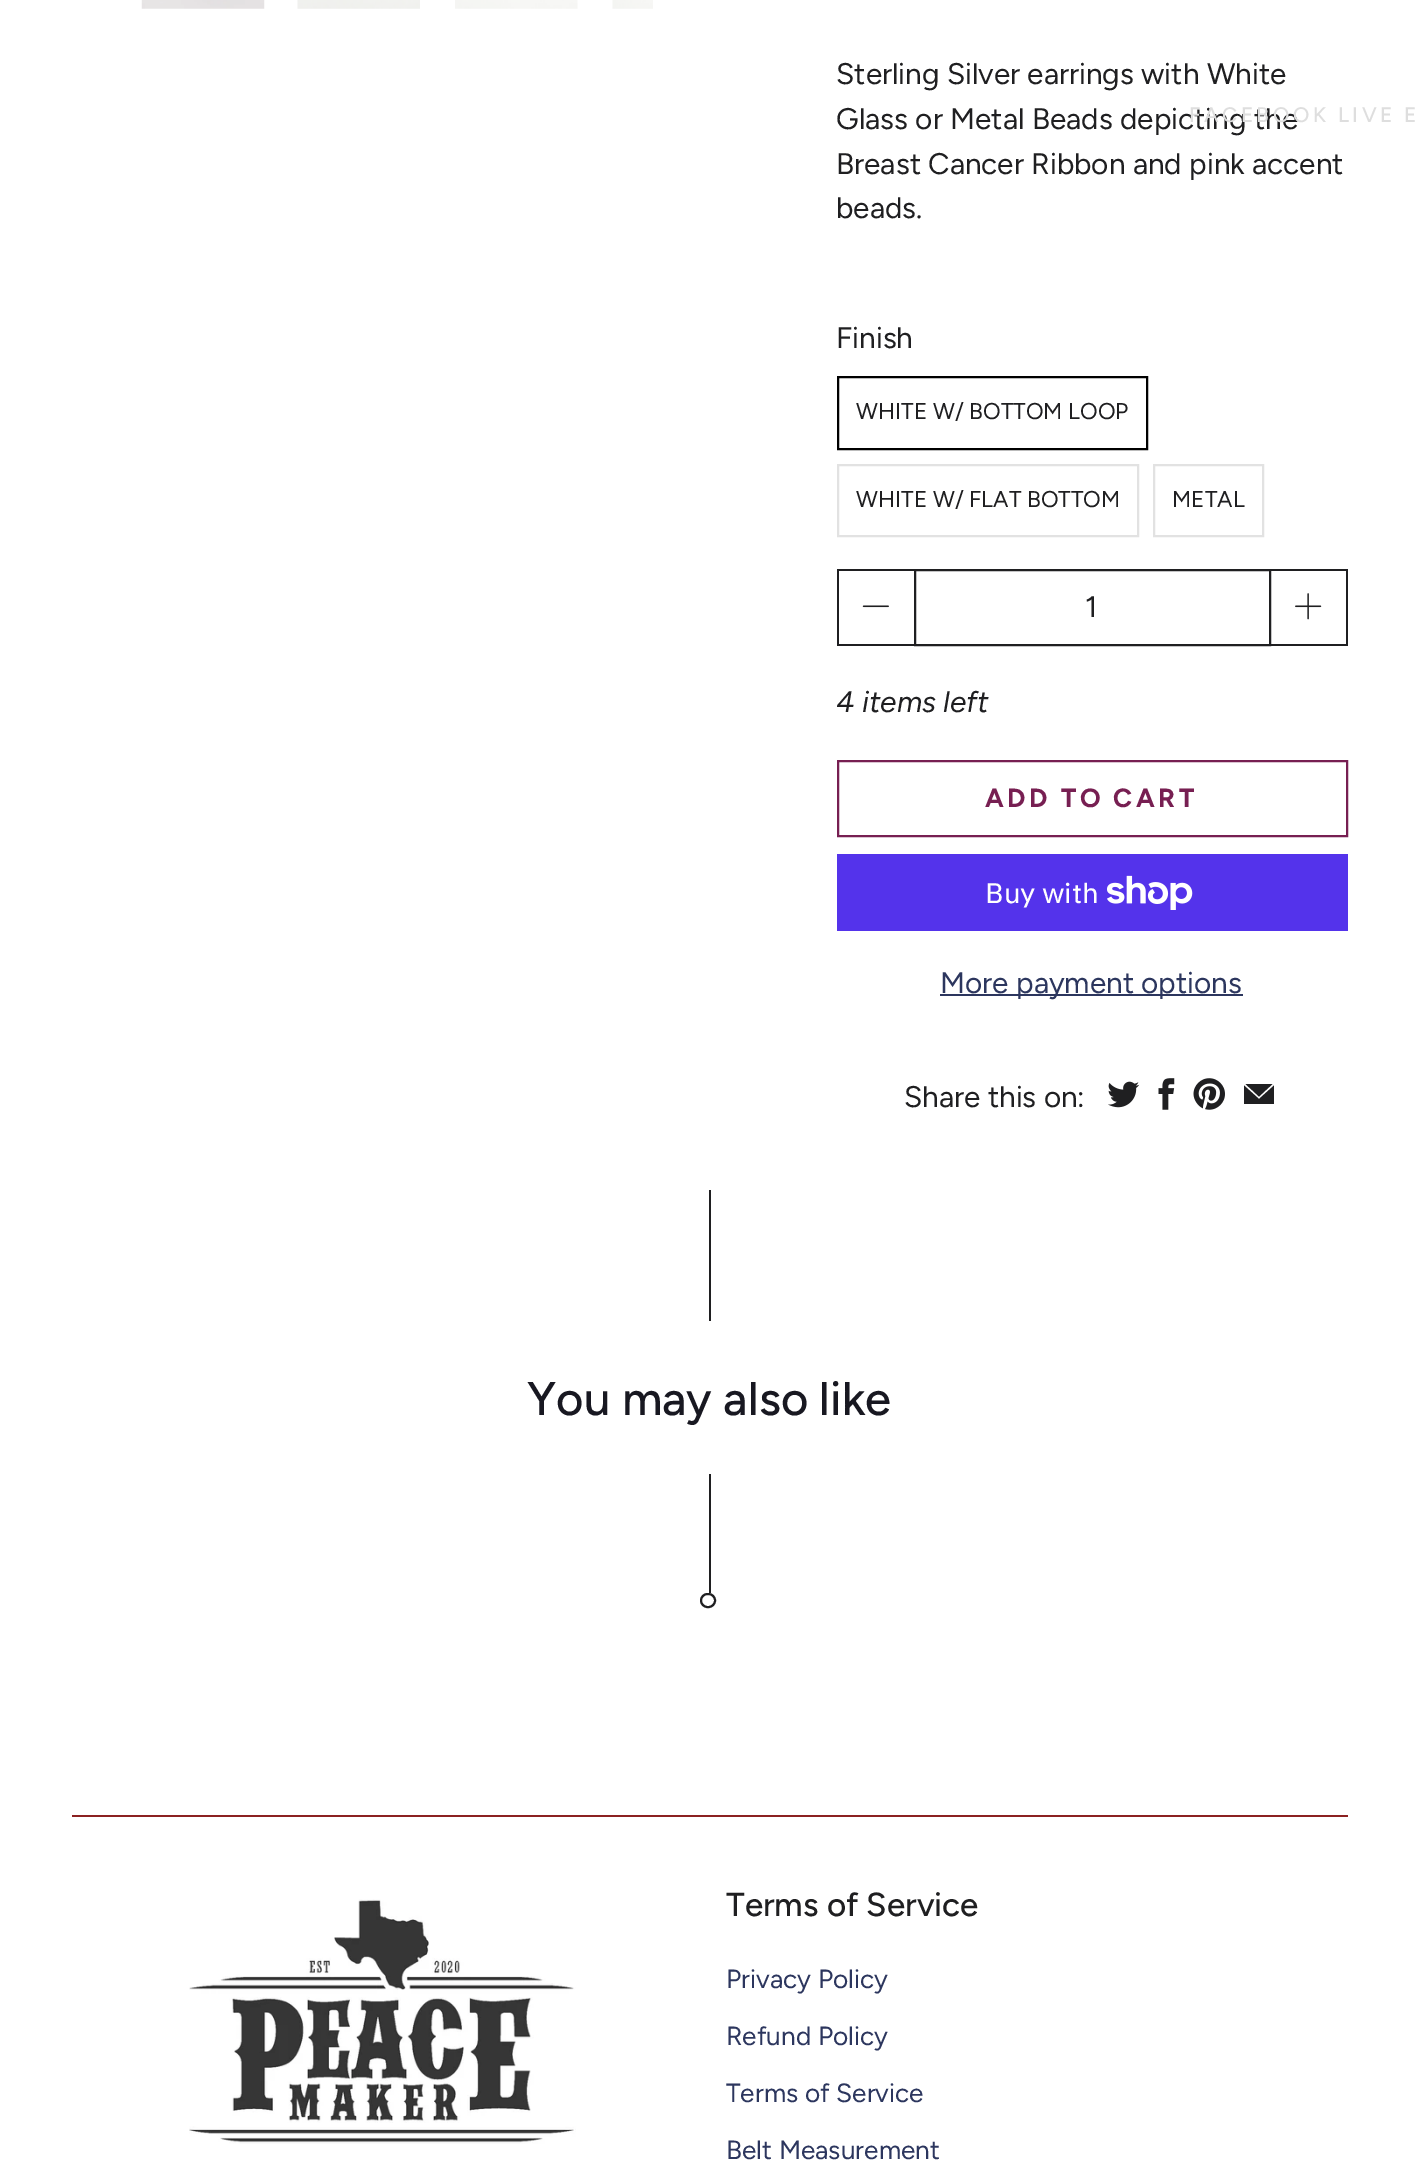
%!PS
<< /PageSize [1417 2180] >> setpagedevice
/rgb { 3 { 255 div 3 1 roll } repeat setrgbcolor } def
/font { [ exch dup neg 0 0 3 -1 roll 0 0 ] selectfont } def
/roundrect { 5 dict begin { /r /h /w /y /x } { exch def } forall
  x r add y moveto x w add y 2 copy h add r arct x w add y h add x 1 index r arct
  x y h add x y r arct x y 2 copy exch w add exch r arct closepath end } def
/picture { 5 dict begin { /h /w /y /x /name } { exch def } forall
  gsave x y translate w h scale
  w h 8 [w 0 0 h 0 0] name (r) file false 3 colorimage grestore end } def
0 2180 translate 1 -1 scale
4 setmiterlimit
255 255 255 rgb
0 0 1417 2180 rectfill
(img/1.rgb) 141 0 124 9 picture
(img/2.rgb) 297 0 123 9 picture
(img/3.rgb) 455 0 123 9 picture
(img/4.rgb) 612 0 41 9 picture
0 0 0 rgb
2 setlinewidth
838 377 309 72 rectstroke
226 226 226 rgb
838 465 300 71 rectstroke
1154 465 109 71 rectstroke
[
  [837 569 77 2 31 31 33]
  [837 644 77 2 31 31 33]
  [837 569 2 77 31 31 33]
] { aload pop rgb rectfill } forall
(img/5.rgb) 862 605 27 3 picture
915 570 355 75 rectstroke
[
  [1271 569 77 2 31 31 33]
  [1346 569 2 77 31 31 33]
  [1271 644 77 2 31 31 33]
] { aload pop rgb rectfill } forall
(img/6.rgb) 1295 593 27 27 picture
119 31 82 rgb
838 761 509 75 rectstroke
84 51 235 rgb
837 854 511 77 rectfill
(img/7.rgb) 1107 875 86 35 picture
44 54 94 rgb
940 994 303 2 rectfill
(img/8.rgb) 1108 1081 32 27 picture
(img/9.rgb) 1158 1078 17 32 picture
(img/10.rgb) 1193 1078 32 32 picture
31 31 33 rgb
1272.5 1084 moveto 1259 1096.5 lineto 1245.5 1084 lineto closepath 1259 1099 moveto 1274 1085.5 lineto 1274 1104 lineto 1244 1104 lineto 1244 1085.5 lineto closepath fill
709 1190 2 131 rectfill
709 1474 2 119 rectfill
701 1594 14 13 6.5 roundrect stroke
139 33 33 rgb
72 1815 1276 2 rectfill
(img/11.rgb) 189 1899 387 245 picture
/Figtree-Regular 29.75 font
31 31 33 rgb
[
  [(Sterling Silver earrings with White) 836 84]
  [(Glass or Metal Beads depicting the) 836 129]
  [(Breast Cancer Ribbon and pink accent) 836 174]
  [(beads.) 836 218]
  [(Finish) 836 348]
] { aload pop moveto show } forall
/Figtree-Regular 22.75 font
[
  [(WHITE W/ BOTTOM LOOP) 856 419]
  [(WHITE W/ FLAT BOTTOM) 856 507]
  [(METAL) 1172 507]
] { aload pop moveto show } forall
/Figtree-Regular 29.75 font
1085 617 moveto (1) show
/Figtree-Italic 29.75 font
836 712 moveto (4 items left) show
/Figtree-Bold 26.25 font
119 31 82 rgb
985 807 moveto 3.5 0 (ADD TO CART) ashow
/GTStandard-Regular 28 font
255 255 255 rgb
985 903 moveto (Buy with) show
/Figtree-Regular 29.75 font
44 54 94 rgb
940 993 moveto (More payment options) show
31 31 33 rgb
904 1107 moveto (Share this on:) show
/Figtree-Medium 47.25 font
24 24 33 rgb
527 1415 moveto (You may also like) show
/Figtree-Medium 33.25 font
31 31 33 rgb
726 1916 moveto (Terms of Service) show
/Figtree-Regular 26.25 font
44 54 94 rgb
[
  [(Privacy Policy) 726 1988]
  [(Refund Policy) 726 2045]
  [(Terms of Service) 726 2102]
  [(Belt Measurement) 726 2159]
] { aload pop moveto show } forall
/Figtree-Medium 21 font
222 222 222 rgb
1189 122 moveto 3.5 0 (FACEBOOK LIVE E) ashow
showpage
